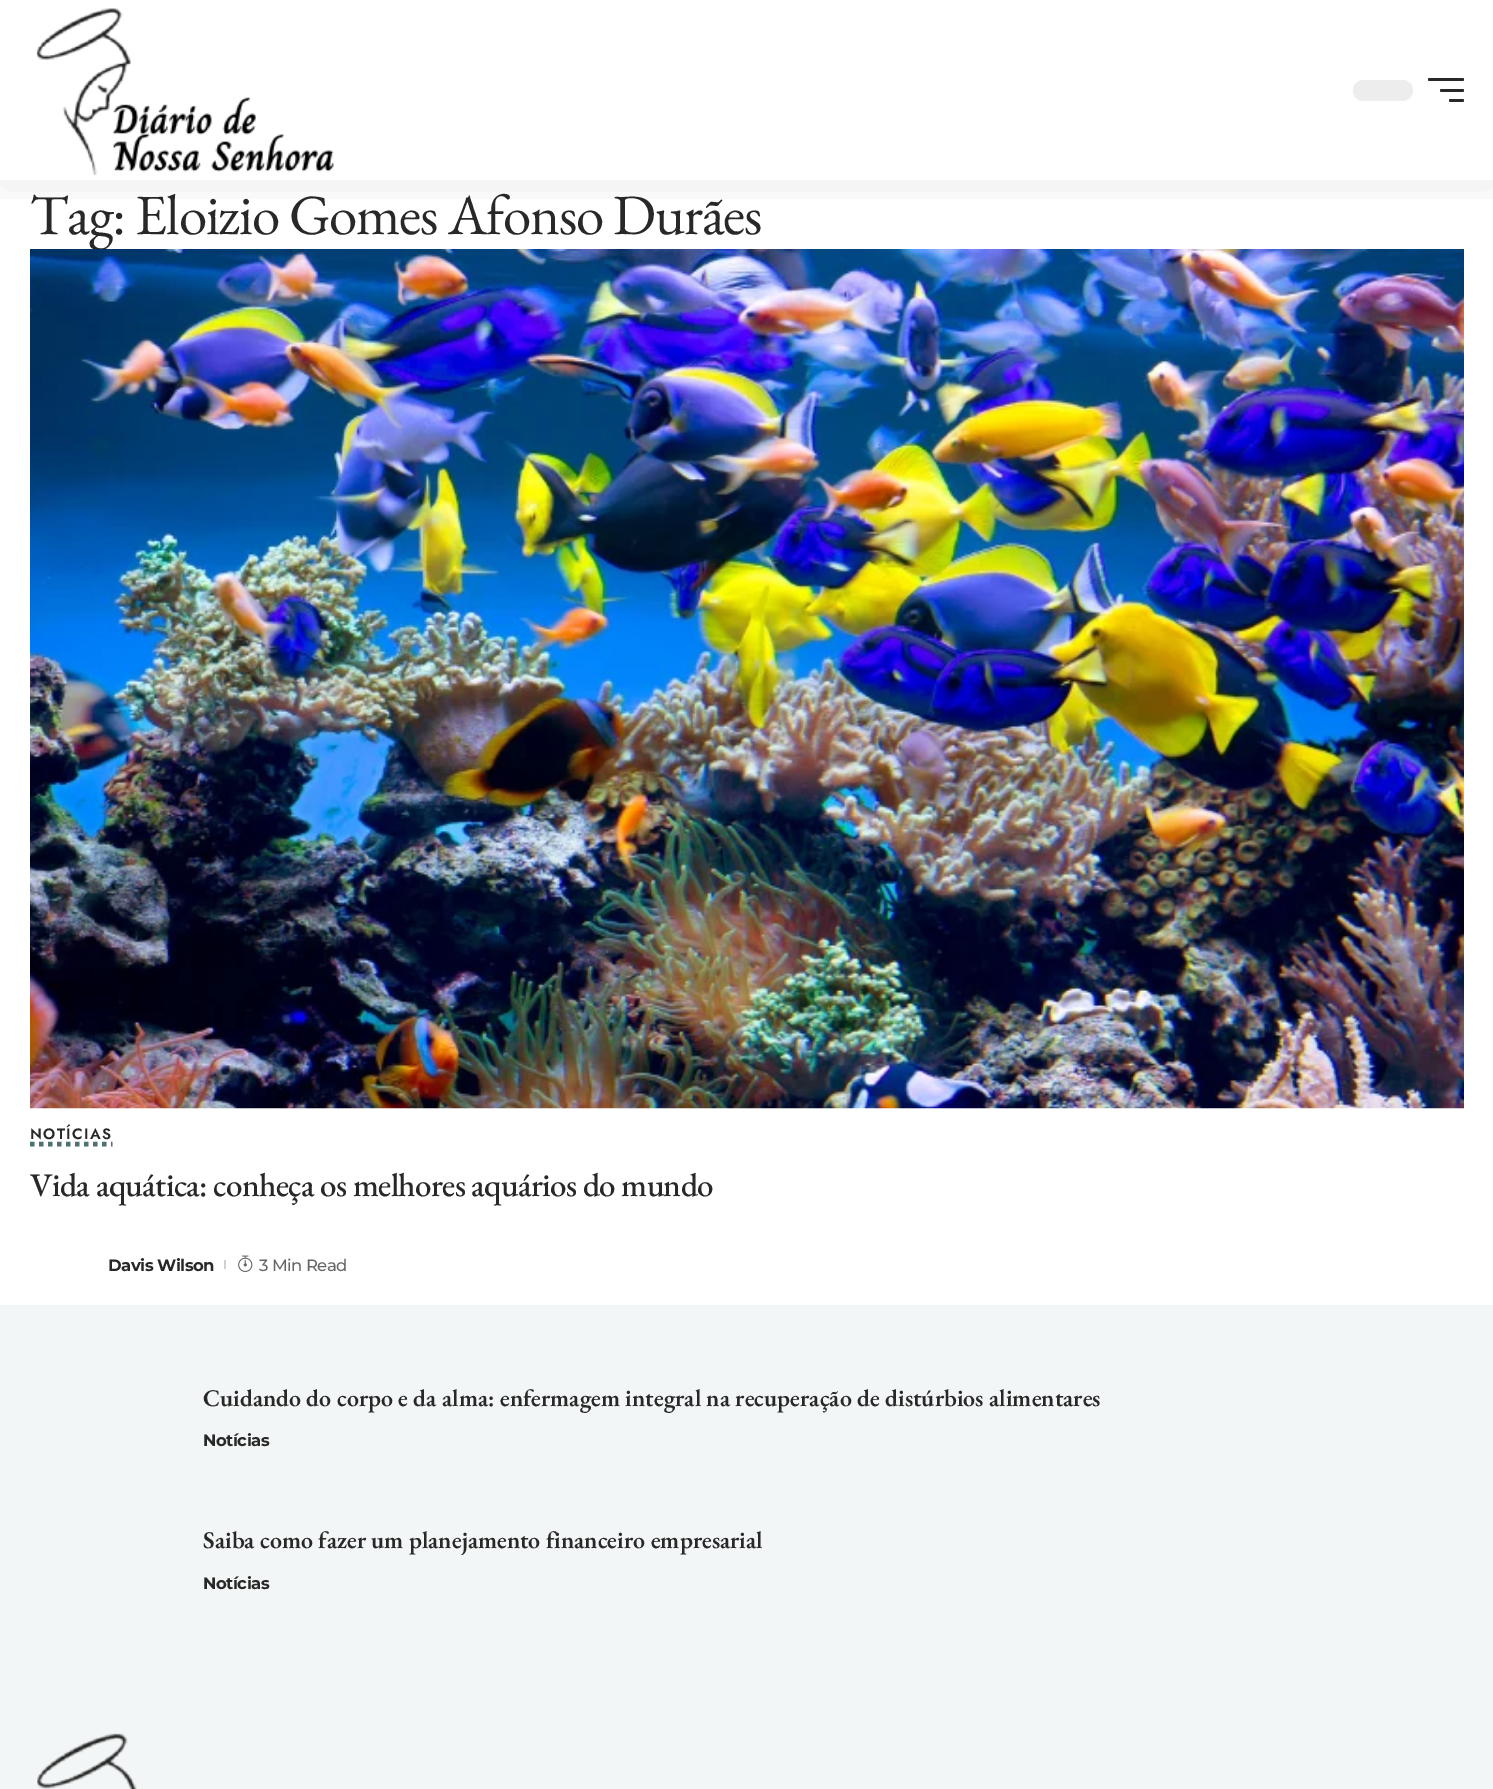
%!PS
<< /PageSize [1493 1789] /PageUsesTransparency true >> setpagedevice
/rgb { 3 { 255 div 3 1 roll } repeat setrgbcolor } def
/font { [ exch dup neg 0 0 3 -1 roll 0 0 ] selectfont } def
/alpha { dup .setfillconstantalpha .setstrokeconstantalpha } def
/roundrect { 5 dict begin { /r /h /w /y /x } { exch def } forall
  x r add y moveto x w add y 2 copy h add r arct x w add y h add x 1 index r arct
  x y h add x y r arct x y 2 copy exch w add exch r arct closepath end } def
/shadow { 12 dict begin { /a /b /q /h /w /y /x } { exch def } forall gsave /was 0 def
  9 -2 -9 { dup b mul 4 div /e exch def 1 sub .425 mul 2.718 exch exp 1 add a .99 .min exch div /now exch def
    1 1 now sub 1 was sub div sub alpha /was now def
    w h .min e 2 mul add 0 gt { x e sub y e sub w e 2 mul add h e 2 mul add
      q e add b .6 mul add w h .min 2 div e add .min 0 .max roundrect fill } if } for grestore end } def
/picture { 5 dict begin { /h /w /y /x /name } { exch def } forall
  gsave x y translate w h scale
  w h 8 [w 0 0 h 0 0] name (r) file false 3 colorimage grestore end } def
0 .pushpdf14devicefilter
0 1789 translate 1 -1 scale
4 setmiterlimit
255 255 255 rgb
0 0 1493 1789 rectfill
80 113 114 rgb
4.5 setlinewidth
[4.5 4.5] 0 setdash
30 1144 moveto 112.5 1144 lineto stroke
209 209 209 rgb
224 1260 2 9 rectfill
(img/3.rgb) 238 1255 15 17 picture
243 246 246 rgb
0 1305 1493 484 rectfill
(img/4.rgb) 37 1733 100 56 picture
/EBGaramond-Regular 57 font
40 40 40 rgb
30 234 moveto -1.2 0 (Tag: Eloizio Gomes Afonso Durães) ashow
(img/2.rgb) 30 249 1434 860 picture
gsave
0 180 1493 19 rectclip
0 0 0 rgb
0 6 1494 180 0 22.5 0.07 shadow
grestore
1449 99 15 3 1.5 roundrect fill
1440 89 24 3 1.5 roundrect fill
1428 78 36 3 1.5 roundrect fill
237 237 237 rgb
1353 80 60 21 10.5 roundrect fill
(img/1.rgb) 36 8 298 168 picture
/Jost-SemiBold 15 font
40 40 40 rgb
30 1139 moveto 1.5 0 (NOTÍCIAS) ashow
/EBGaramond-Medium 33 font
30 1196 moveto -0.7 0 (Vida aquática: conheça os melhores aquários do mundo) ashow
/Montserrat-Bold 16.5 font
108 1271 moveto -0.5 0 (Davis Wilson) ashow
/Montserrat-Medium 16.5 font
102 102 102 rgb
259 1271 moveto -0.5 0 (3 Min Read) ashow
/EBGaramond-SemiBold 24 font
40 40 40 rgb
203 1406 moveto (Cuidando do corpo e da alma: enfermagem integral na recuperação de distúrbios alimentares) show
/Montserrat-Bold 16.5 font
203 1446 moveto -0.5 0 (Notícias) ashow
/EBGaramond-SemiBold 24 font
203 1548 moveto (Saiba como fazer um planejamento financeiro empresarial) show
/Montserrat-Bold 16.5 font
203 1589 moveto -0.5 0 (Notícias) ashow
.poppdf14devicefilter showpage
